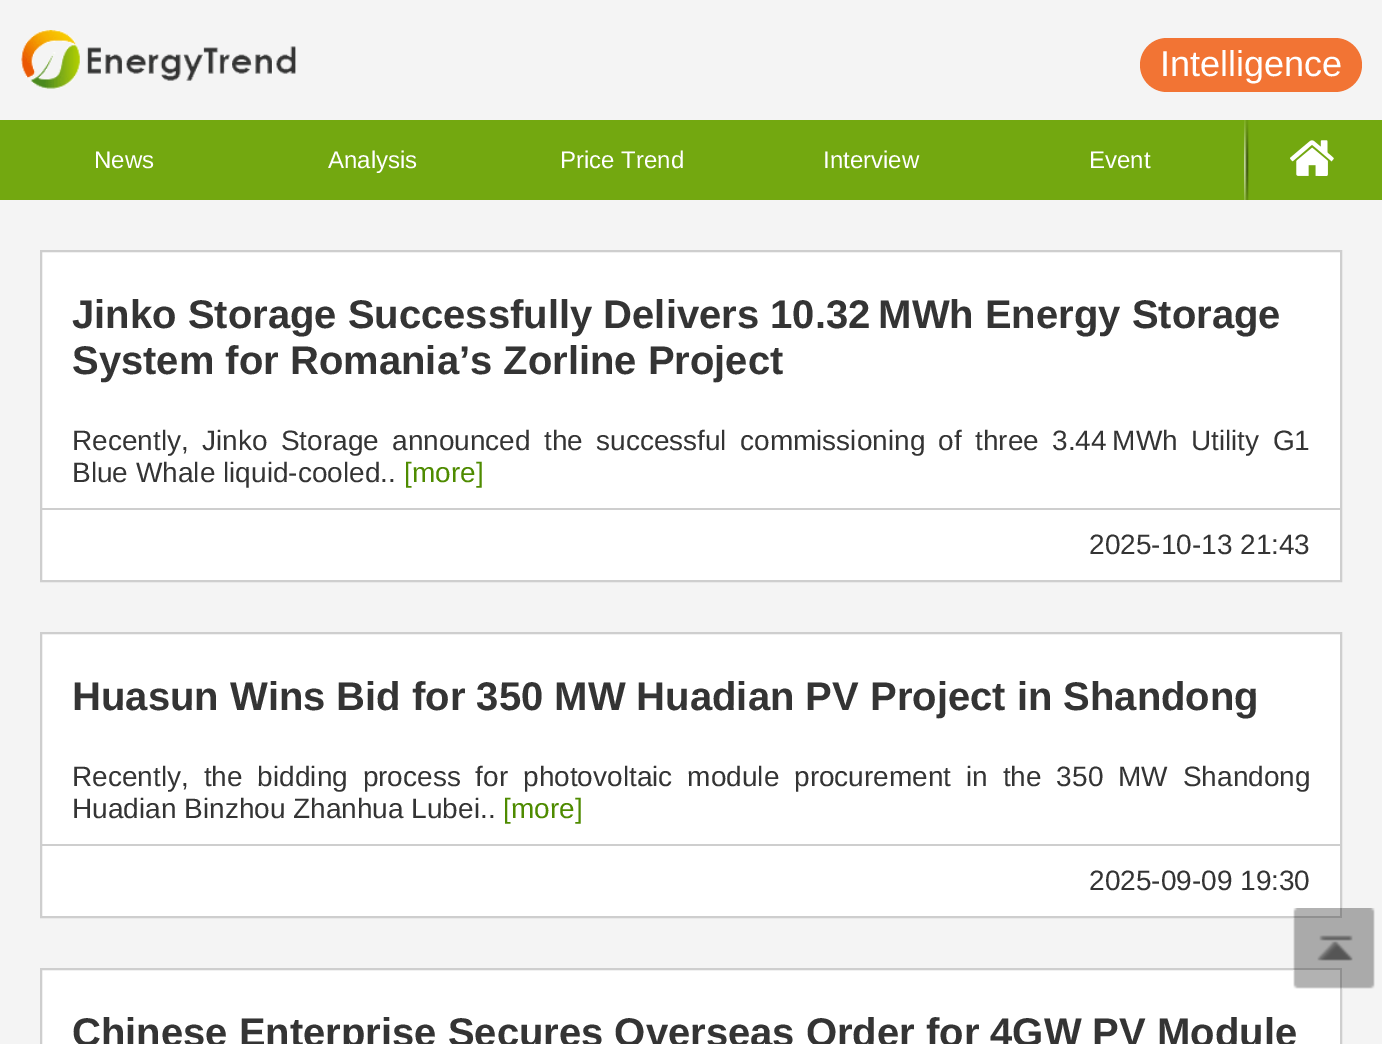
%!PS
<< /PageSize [1382 1044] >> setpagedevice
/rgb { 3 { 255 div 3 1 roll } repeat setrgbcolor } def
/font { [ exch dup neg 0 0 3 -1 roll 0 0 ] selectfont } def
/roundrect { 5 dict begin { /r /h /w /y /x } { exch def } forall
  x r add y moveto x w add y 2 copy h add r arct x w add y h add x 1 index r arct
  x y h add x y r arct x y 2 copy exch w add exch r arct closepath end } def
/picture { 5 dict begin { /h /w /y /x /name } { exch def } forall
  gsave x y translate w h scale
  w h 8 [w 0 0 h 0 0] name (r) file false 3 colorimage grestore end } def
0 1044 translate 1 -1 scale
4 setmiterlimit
244 244 244 rgb
0 0 1382 1044 rectfill
(img/1.rgb) 21 30 275 59 picture
242 116 52 rgb
1140 38 222 54 27 roundrect fill
115 168 16 rgb
0 120 1382 80 rectfill
(img/2.rgb) 1244 120 5 80 picture
(img/3.rgb) 1290 140 44 36 picture
255 255 255 rgb
41 251 moveto 1341 251 lineto 1341 581 lineto 41 581 lineto closepath gsave fill grestore
206 206 206 rgb
2 setlinewidth
stroke
42 508 1298 2 rectfill
255 255 255 rgb
41 633 moveto 1341 633 lineto 1341 917 lineto 41 917 lineto closepath gsave fill grestore
206 206 206 rgb
stroke
42 844 1298 2 rectfill
255 255 255 rgb
41 969 moveto 1341 969 lineto 1341 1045 lineto 41 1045 lineto closepath gsave fill grestore
206 206 206 rgb
stroke
(img/4.rgb) 1293 908 82 81 picture
/LiberationSans-Regular 36 font
255 255 255 rgb
1160 76 moveto (Intelligence) show
/LiberationSans-Regular 24 font
[
  [(News) 94 168]
  [(Analysis) 328 168]
  [(Price Trend) 560 168]
  [(Interview) 823 168]
  [(Event) 1089 168]
] { aload pop moveto show } forall
/LiberationSans-Bold 40 font
52 52 52 rgb
72 328 moveto (Jinko Storage Successfully Delivers 10.32 MWh Energy Storage) show
72 374 moveto (System for Romania’s Zorline Project) show
/LiberationSans-Regular 28 font
72 450 moveto 5.5 0 32 (Recently, Jinko Storage announced the successful commissioning of three 3.44 MWh Utility G1) widthshow
72 482 moveto (Blue Whale liquid-cooled..) show
78 139 0 rgb
404 482 moveto ([more]) show
52 52 52 rgb
1089 554 moveto (2025-10-13 21:43) show
/LiberationSans-Bold 40 font
72 710 moveto (Huasun Wins Bid for 350 MW Huadian PV Project in Shandong) show
/LiberationSans-Regular 28 font
72 786 moveto 7.1 0 32 (Recently, the bidding process for photovoltaic module procurement in the 350 MW Shandong) widthshow
72 818 moveto (Huadian Binzhou Zhanhua Lubei..) show
78 139 0 rgb
503 818 moveto ([more]) show
52 52 52 rgb
1089 890 moveto (2025-09-09 19:30) show
/LiberationSans-Bold 40 font
72 1046 moveto (Chinese Enterprise Secures Overseas Order for 4GW PV Module) show
showpage
